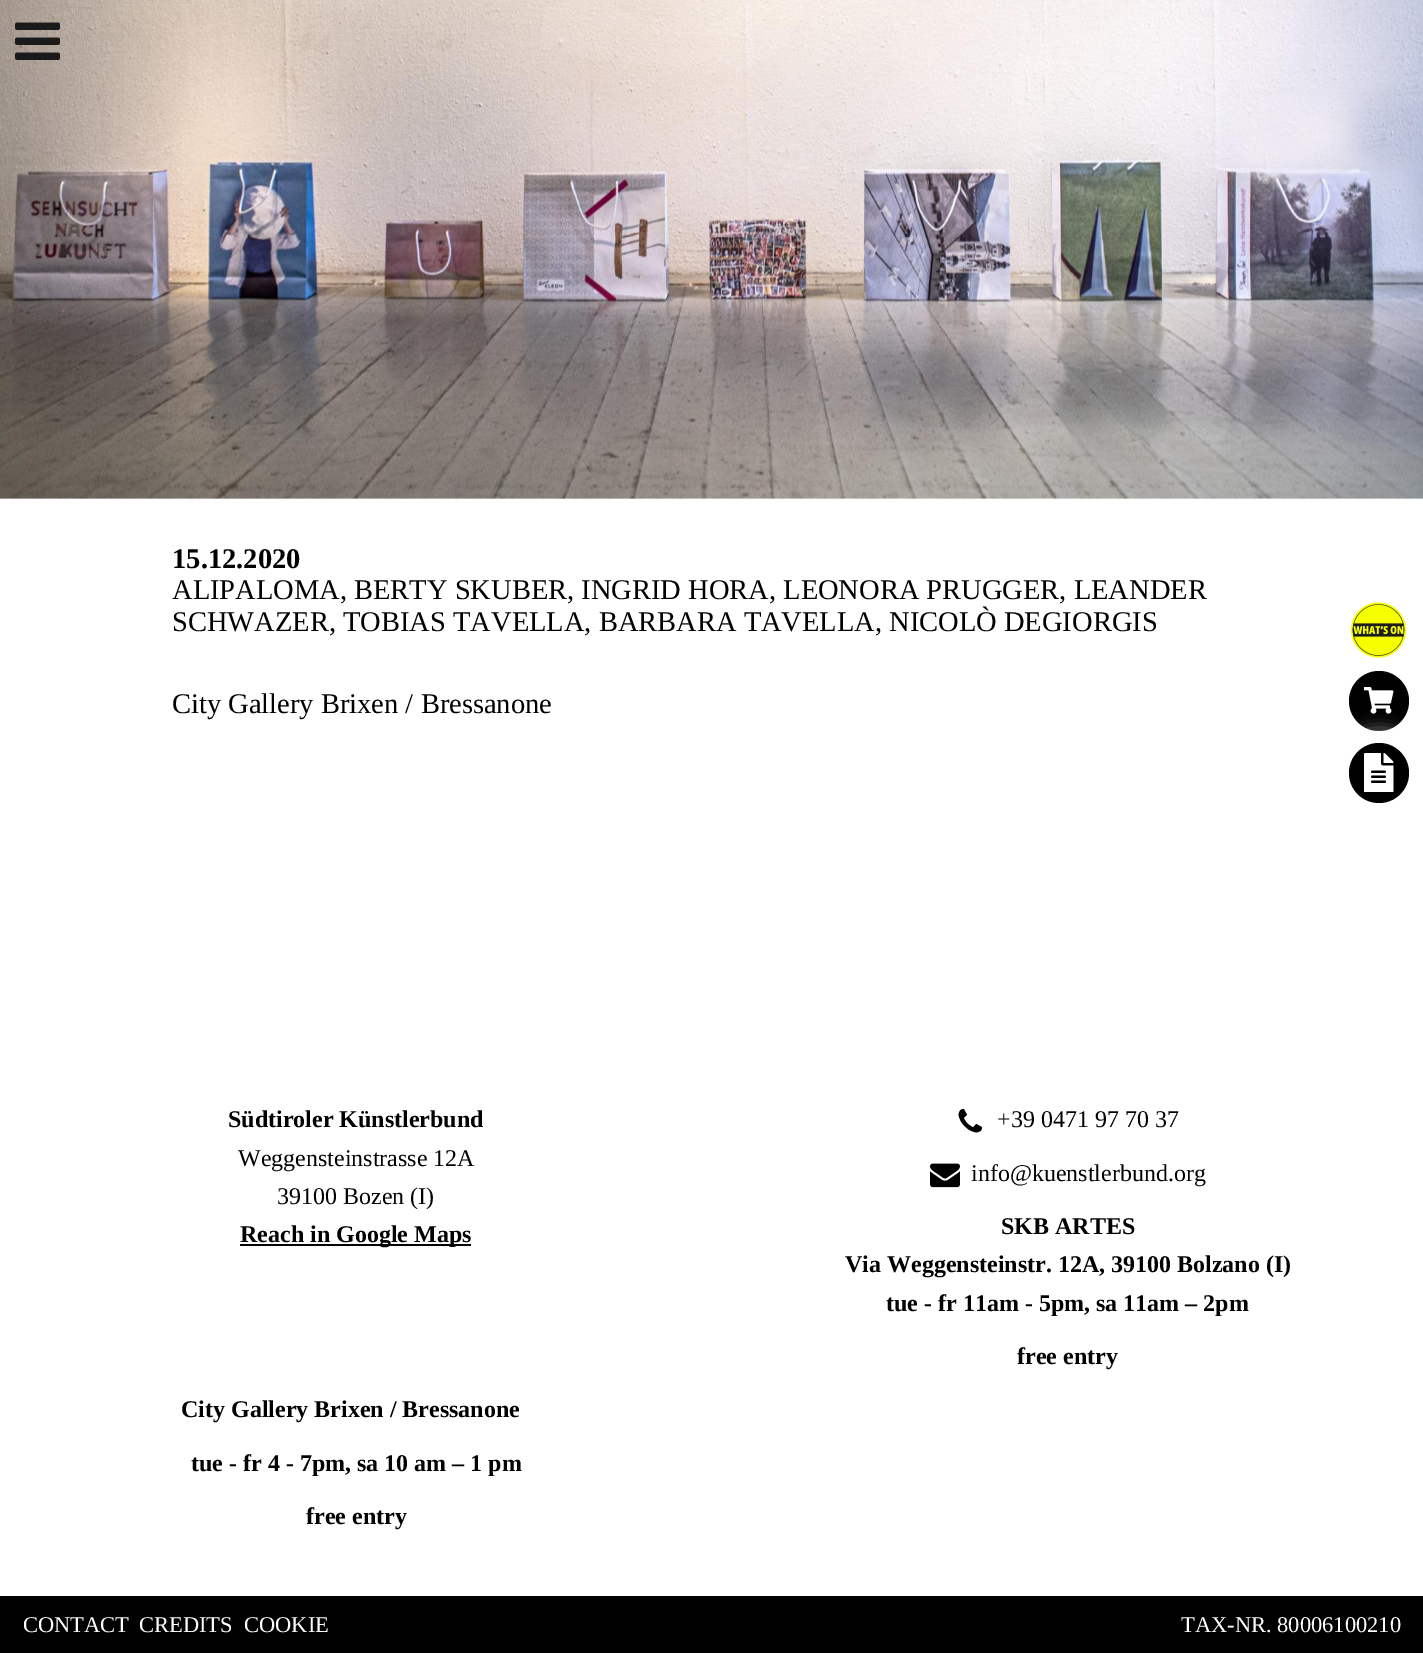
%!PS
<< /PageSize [1423 1653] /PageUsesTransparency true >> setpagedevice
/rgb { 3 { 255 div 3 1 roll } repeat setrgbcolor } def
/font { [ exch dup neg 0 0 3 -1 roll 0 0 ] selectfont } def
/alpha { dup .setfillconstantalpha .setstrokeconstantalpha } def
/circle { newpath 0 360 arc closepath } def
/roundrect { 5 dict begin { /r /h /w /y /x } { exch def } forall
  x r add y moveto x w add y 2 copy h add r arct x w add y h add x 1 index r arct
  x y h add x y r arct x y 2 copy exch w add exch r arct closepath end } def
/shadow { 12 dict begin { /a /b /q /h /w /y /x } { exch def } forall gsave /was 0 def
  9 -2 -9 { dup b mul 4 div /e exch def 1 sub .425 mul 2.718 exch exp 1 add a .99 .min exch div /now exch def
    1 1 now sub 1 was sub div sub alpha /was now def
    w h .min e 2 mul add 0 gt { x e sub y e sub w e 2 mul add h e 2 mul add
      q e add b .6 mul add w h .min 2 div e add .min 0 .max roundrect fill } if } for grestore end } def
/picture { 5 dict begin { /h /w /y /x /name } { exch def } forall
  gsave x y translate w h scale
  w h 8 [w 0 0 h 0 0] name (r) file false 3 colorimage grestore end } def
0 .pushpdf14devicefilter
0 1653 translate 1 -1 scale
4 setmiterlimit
255 255 255 rgb
0 0 1423 1653 rectfill
(img/2.rgb) 0 0 1423 499 picture
(img/1.rgb) 15 22 45 38 picture
(img/3.rgb) 1351 602 55 56 picture
0 0 0 rgb
1379 701 30 circle fill
(img/4.rgb) 1364 687 30 27 picture
255 255 255 rgb
1334 728 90 90 45 7.5 0.4 shadow
0 0 0 rgb
1379 773 30 circle fill
(img/5.rgb) 1364 753 30 39 picture
240 1244 231 2 rectfill
(img/6.rgb) 958 1108 25 25 picture
(img/7.rgb) 930 1163 30 25 picture
0 1596 1423 57 rectfill
/LiberationSerif-Bold 28.5 font
172 568 moveto (15.12.2020) show
/LiberationSerif-Regular 28.5 font
[
  [(ALIPALOMA, BERTY SKUBER, INGRID HORA, LEONORA PRUGGER, LEANDER) 172 599]
  [(SCHWAZER, TOBIAS TAVELLA, BARBARA TAVELLA, NICOLÒ DEGIORGIS) 172 631]
  [(City Gallery Brixen / Bressanone) 172 713]
] { aload pop moveto show } forall
/LiberationSerif-Bold 24 font
228 1127 moveto (Südtiroler Künstlerbund) show
/LiberationSerif-Regular 24 font
238 1166 moveto (Weggensteinstrasse 12A) show
277 1204 moveto (39100 Bozen \(I\)) show
/LiberationSerif-Bold 24 font
240 1242 moveto (Reach in Google Maps) show
/LiberationSerif-Regular 24 font
997 1127 moveto (+39 0471 97 70 37) show
971 1181 moveto (info@kuenstlerbund.org) show
/LiberationSerif-Bold 24 font
[
  [(SKB ARTES) 1001 1234]
  [(Via Weggensteinstr. 12A, 39100 Bolzano \(I\)) 845 1272]
  [(tue - fr 11am - 5pm, sa 11am – 2pm) 886 1311]
  [(free entry) 1017 1364]
  [(City Gallery Brixen / Bressanone) 181 1417]
  [(tue - fr 4 - 7pm, sa 10 am – 1 pm) 191 1471]
  [(free entry) 306 1524]
] { aload pop moveto show } forall
/LiberationSerif-Regular 22.5 font
255 255 255 rgb
[
  [(CONTACT) 23 1632]
  [(CREDITS) 139 1632]
  [(COOKIE) 244 1632]
  [(TAX-NR. 80006100210) 1181 1632]
] { aload pop moveto show } forall
.poppdf14devicefilter showpage
